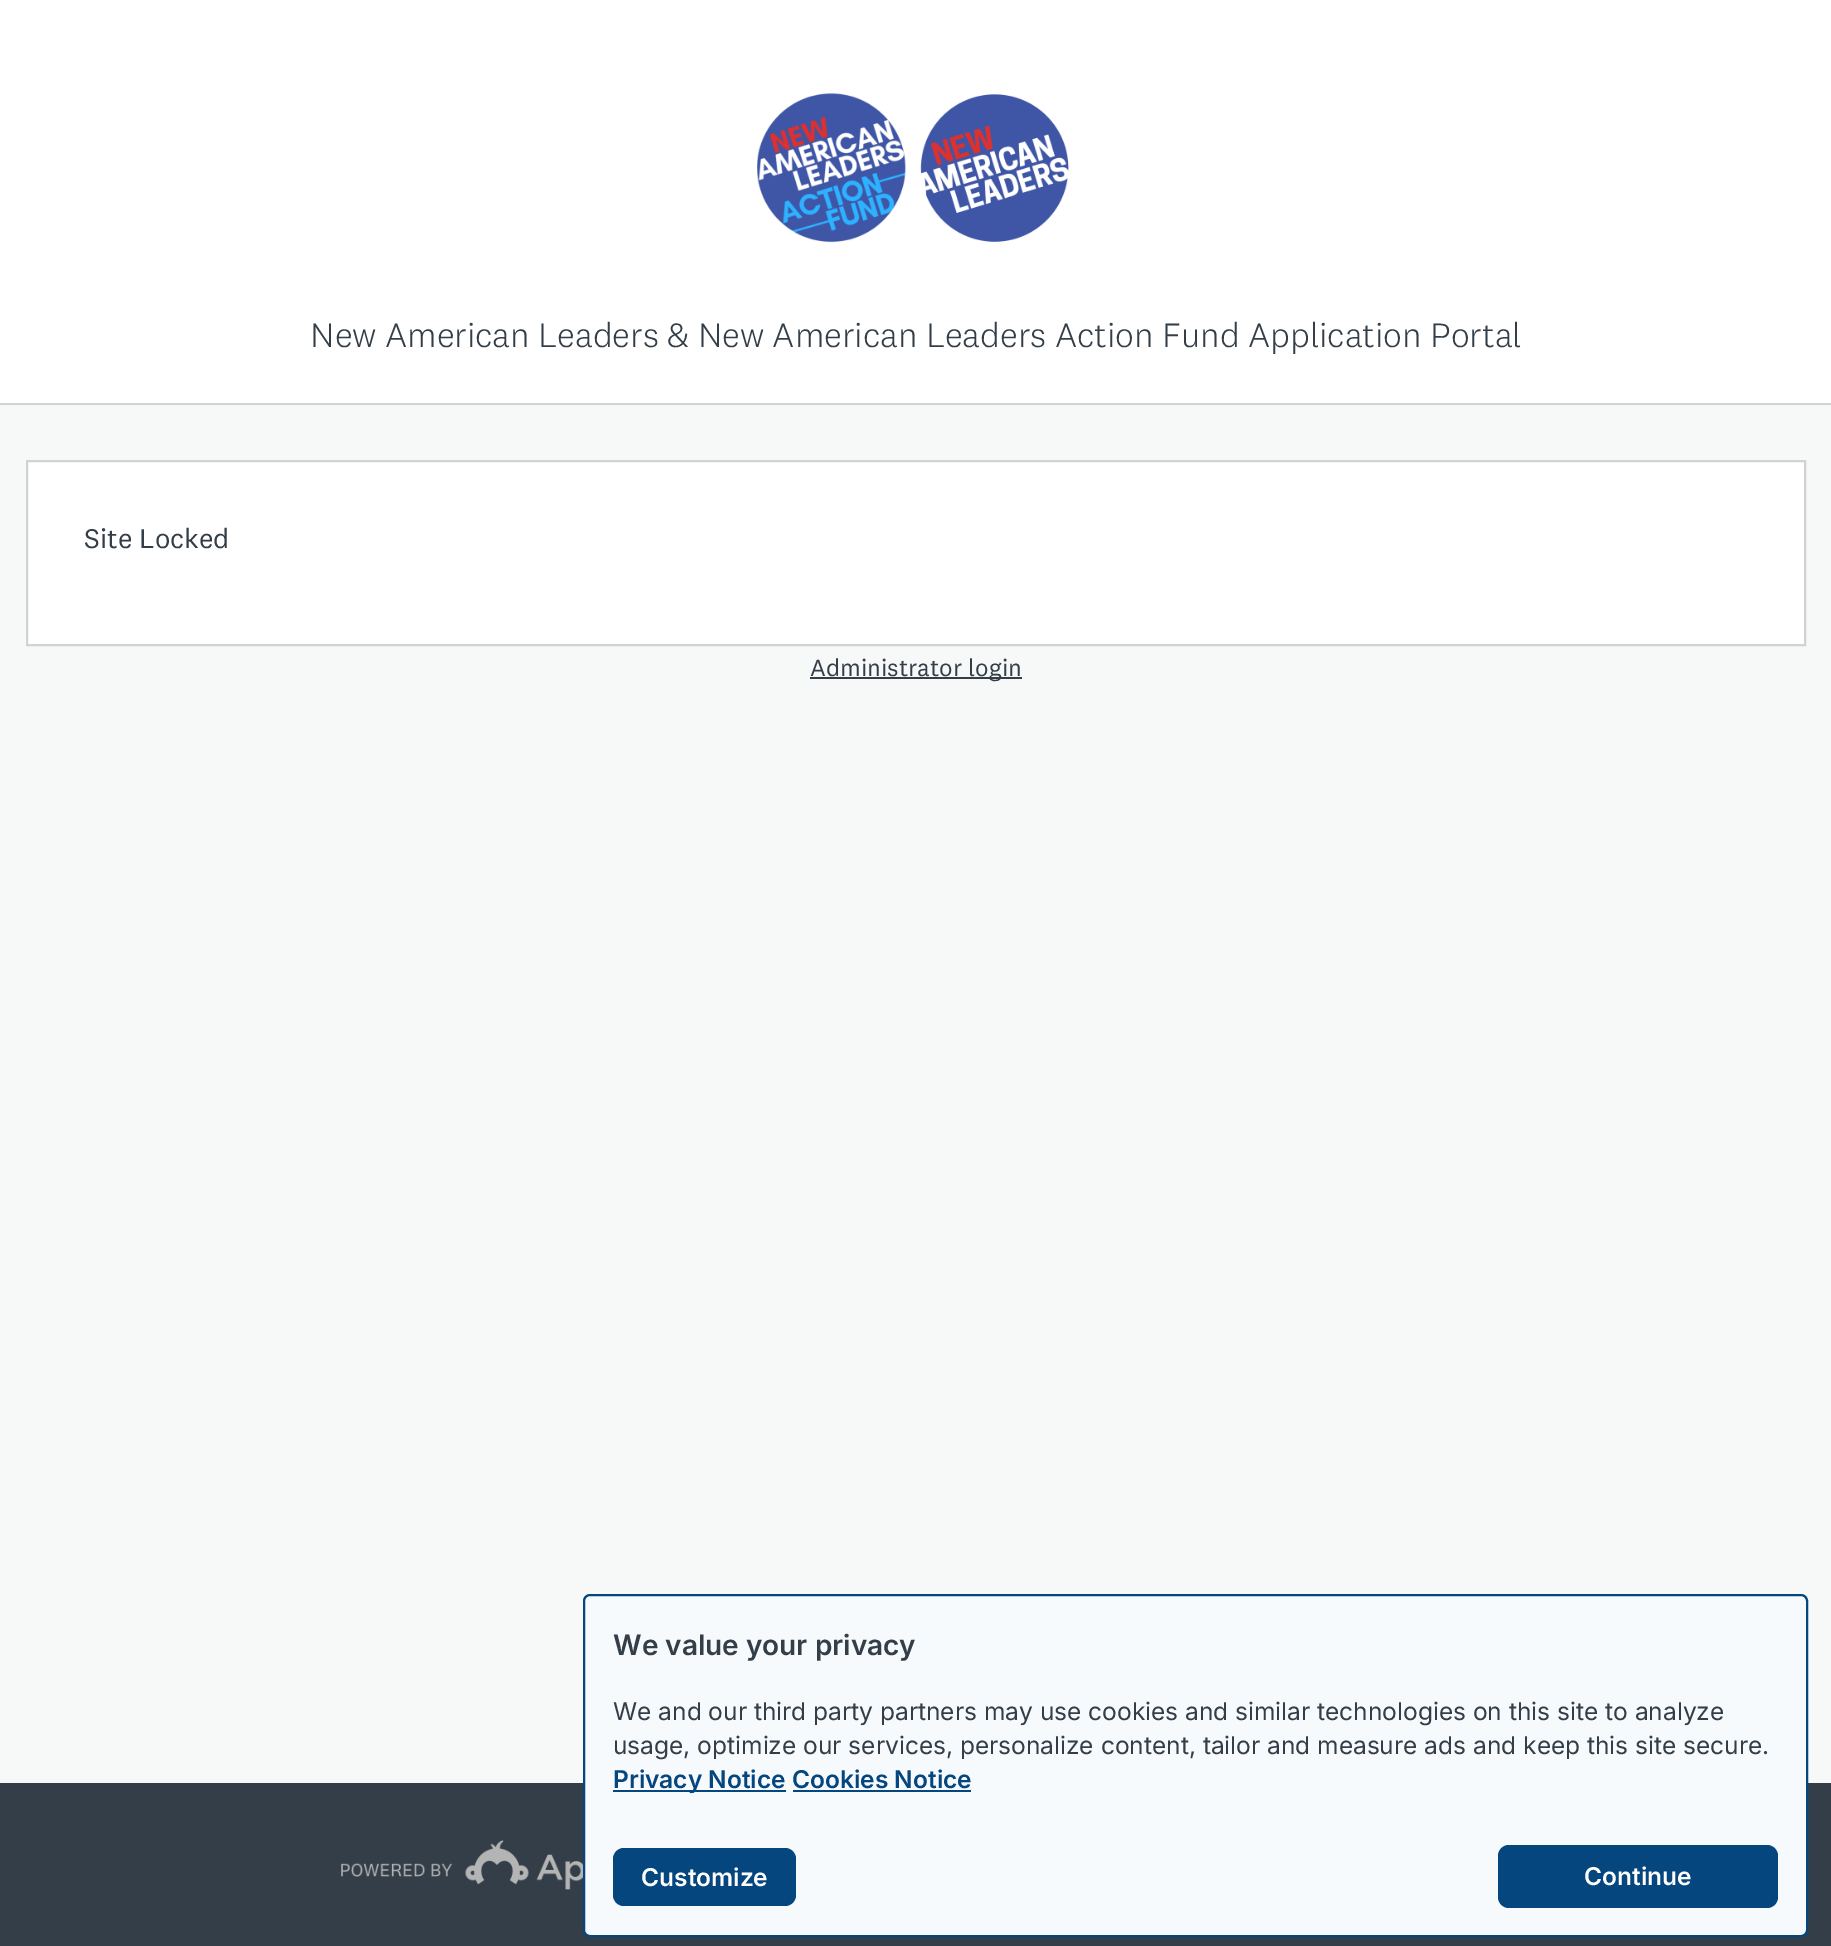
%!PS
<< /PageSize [1831 1946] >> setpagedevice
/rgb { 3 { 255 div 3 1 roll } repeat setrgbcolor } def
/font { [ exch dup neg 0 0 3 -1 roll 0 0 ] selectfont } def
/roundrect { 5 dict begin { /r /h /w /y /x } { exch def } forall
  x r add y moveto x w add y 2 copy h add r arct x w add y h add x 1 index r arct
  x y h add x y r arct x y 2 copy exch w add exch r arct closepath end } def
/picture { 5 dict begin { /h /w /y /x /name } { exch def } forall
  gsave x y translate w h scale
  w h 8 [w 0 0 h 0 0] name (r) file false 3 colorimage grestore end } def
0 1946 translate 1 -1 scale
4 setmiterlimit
247 248 248 rgb
0 0 1831 1946 rectfill
255 255 255 rgb
0 0 1831 403 rectfill
208 210 211 rgb
0 403 1831 2 rectfill
(img/1.rgb) 757 93 312 150 picture
255 255 255 rgb
27 461 moveto 1805 461 lineto 1805 645 lineto 27 645 lineto closepath gsave fill grestore
208 210 211 rgb
2 setlinewidth
stroke
51 62 72 rgb
810 677 212 2 rectfill
0 1783 1831 163 rectfill
(img/2.rgb) 341 1840 242 50 picture
247 250 252 rgb
584 1595 1223 341 6 roundrect gsave fill grestore
5 70 126 rgb
stroke
613 1790 173 2 rectfill
793 1790 178 2 rectfill
613 1848 183 58 11 roundrect fill
1498 1845 280 63 11 roundrect fill
/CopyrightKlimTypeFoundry-Light 35 font
51 62 72 rgb
310 347 moveto (New American Leaders & New American Leaders Action Fund Application Portal) show
/CopyrightKlimTypeFoundry-Regular 28 font
84 548 moveto (Site Locked) show
/CopyrightKlimTypeFoundry-Regular 24.5 font
810 676 moveto (Administrator login) show
/Inter-SemiBold 28 font
613 1655 moveto (We value your privacy) show
/Inter-Regular 24.5 font
613 1720 moveto (We and our third party partners may use cookies and similar technologies on this site to analyze) show
613 1754 moveto (usage, optimize our services, personalize content, tailor and measure ads and keep this site secure.) show
/Inter-SemiBold 24.5 font
5 70 126 rgb
613 1788 moveto (Privacy Notice) show
792 1788 moveto (Cookies Notice) show
255 255 255 rgb
641 1886 moveto (Customize) show
1584 1885 moveto (Continue) show
showpage
